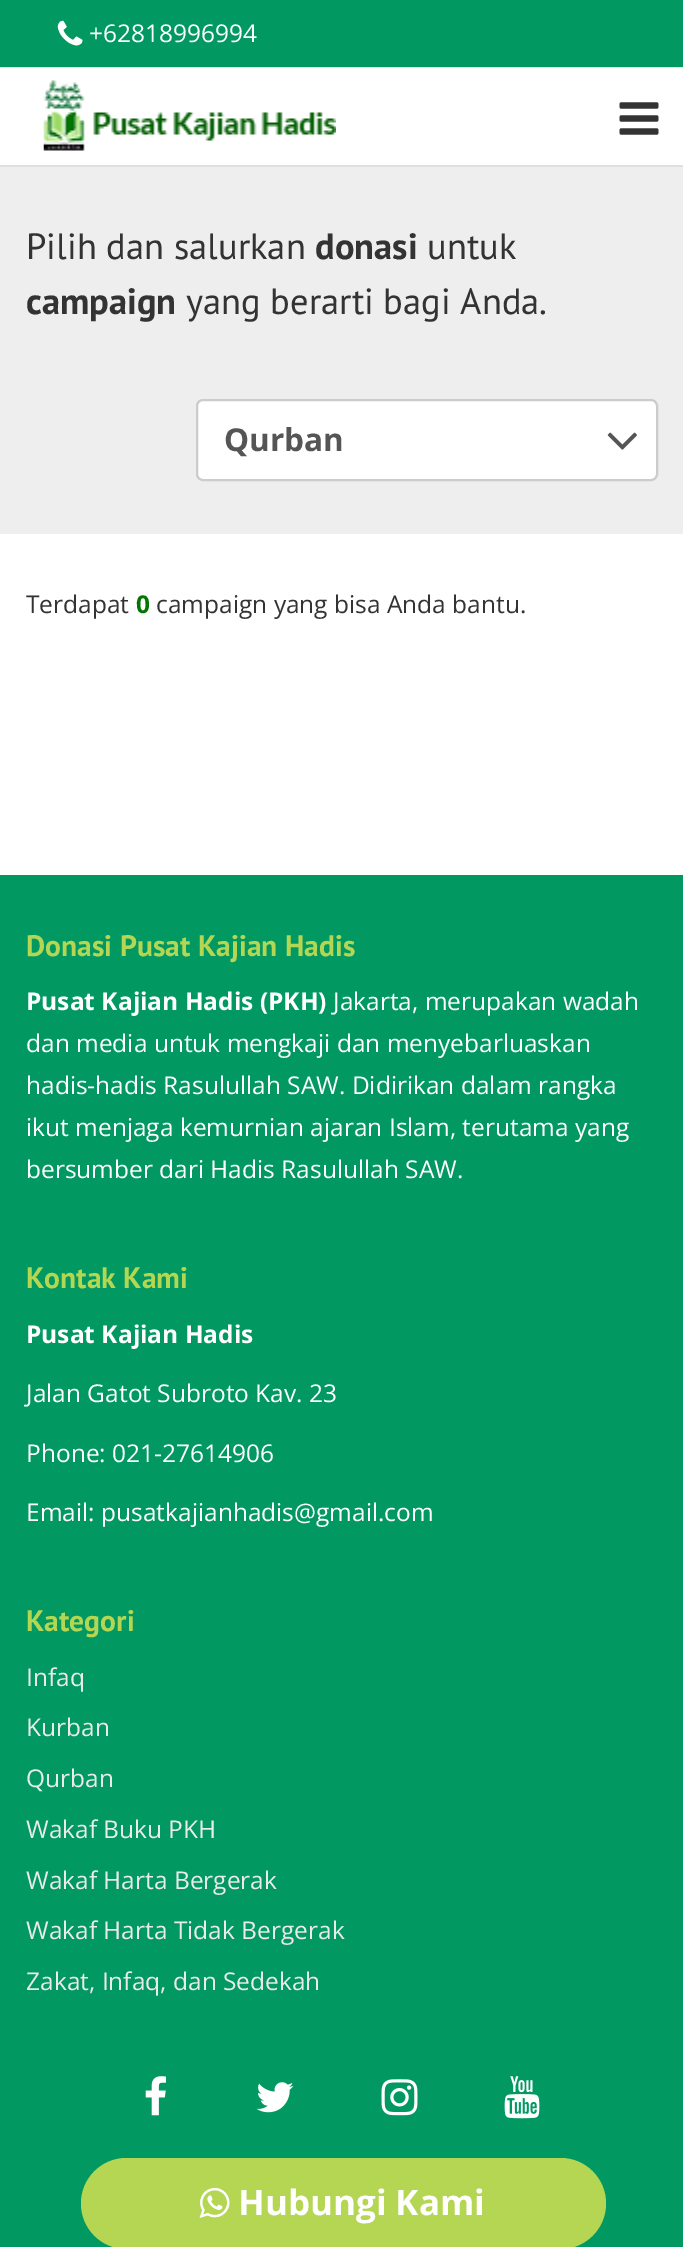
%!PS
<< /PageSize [683 2247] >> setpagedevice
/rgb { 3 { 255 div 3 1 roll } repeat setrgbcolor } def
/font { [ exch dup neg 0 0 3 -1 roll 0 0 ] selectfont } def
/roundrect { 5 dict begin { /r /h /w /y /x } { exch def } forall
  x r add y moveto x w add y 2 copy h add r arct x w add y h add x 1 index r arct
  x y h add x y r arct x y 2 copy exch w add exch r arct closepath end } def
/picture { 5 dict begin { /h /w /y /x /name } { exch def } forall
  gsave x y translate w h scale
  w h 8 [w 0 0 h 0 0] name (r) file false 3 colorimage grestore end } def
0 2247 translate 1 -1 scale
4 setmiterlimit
255 255 255 rgb
0 0 683 2247 rectfill
1 153 97 rgb
0 0 683 67 rectfill
231 231 231 rgb
0 67 683 1 rectfill
(img/1.rgb) 57 20 26 26 picture
224 224 224 rgb
0 165 683 2 rectfill
(img/2.rgb) 43 80 293 71 picture
(img/3.rgb) 619 102 40 33 picture
238 238 238 rgb
0 167 683 367 rectfill
255 255 255 rgb
197 400 460 80 6 roundrect gsave fill grestore
204 204 204 rgb
2 setlinewidth
stroke
(img/4.rgb) 607 432 30 18 picture
1 153 97 rgb
0 875 683 1372 rectfill
(img/5.rgb) 145 2076 21 40 picture
(img/6.rgb) 256 2082 38 31 picture
(img/7.rgb) 381 2079 37 37 picture
(img/8.rgb) 504 2076 36 43 picture
181 214 83 rgb
81 2158 525 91 45.5 roundrect fill
(img/9.rgb) 199 2187 31 31 picture
/OpenSans-Regular 24.5 font
255 255 255 rgb
89 42 moveto (+62818996994) show
/PTSans-Regular 36.5 font
51 51 51 rgb
26 259 moveto (Pilih dan salurkan) show
/PTSans-Bold 36.5 font
315 259 moveto (donasi) show
/PTSans-Regular 36.5 font
427 259 moveto (untuk) show
/PTSans-Bold 36.5 font
26 314 moveto (campaign) show
/PTSans-Regular 36.5 font
186 314 moveto (yang berarti bagi Anda.) show
/OpenSans-Bold 31.5 font
85 85 85 rgb
224 451 moveto (Qurban) show
/OpenSans-Regular 24.5 font
51 51 51 rgb
26 613 moveto (Terdapat) show
/OpenSans-Bold 24.5 font
3 118 1 rgb
136 613 moveto (0) show
/OpenSans-Regular 24.5 font
51 51 51 rgb
156 613 moveto (campaign yang bisa Anda bantu.) show
/PTSans-Bold 29.6 font
181 214 83 rgb
26 956 moveto (Donasi Pusat Kajian Hadis) show
/OpenSans-Bold 24.5 font
255 255 255 rgb
26 1010 moveto (Pusat Kajian Hadis \(PKH\)) show
/OpenSans-Regular 24.5 font
[
  [(Jakarta, merupakan wadah) 333 1010]
  [(dan media untuk mengkaji dan menyebarluaskan) 26 1052]
  [(hadis-hadis Rasulullah SAW. Didirikan dalam rangka) 26 1094]
  [(ikut menjaga kemurnian ajaran Islam, terutama yang) 26 1136]
  [(bersumber dari Hadis Rasulullah SAW.) 26 1178]
] { aload pop moveto show } forall
/PTSans-Bold 29.6 font
181 214 83 rgb
26 1288 moveto (Kontak Kami) show
/OpenSans-Bold 24.5 font
255 255 255 rgb
26 1343 moveto (Pusat Kajian Hadis) show
/OpenSans-Regular 24.5 font
[
  [(Jalan Gatot Subroto Kav. 23) 26 1402]
  [(Phone: 021-27614906) 26 1462]
  [(Email: pusatkajianhadis@gmail.com) 26 1521]
] { aload pop moveto show } forall
/PTSans-Bold 29.6 font
181 214 83 rgb
26 1631 moveto (Kategori) show
/OpenSans-Regular 24.5 font
235 235 235 rgb
[
  [(Infaq) 26 1686]
  [(Kurban) 26 1736]
  [(Qurban) 26 1787]
  [(Wakaf Buku PKH) 26 1838]
  [(Wakaf Harta Bergerak) 26 1889]
  [(Wakaf Harta Tidak Bergerak) 26 1939]
  [(Zakat, Infaq, dan Sedekah) 26 1990]
] { aload pop moveto show } forall
/OpenSans-Bold 35 font
255 255 255 rgb
238 2215 moveto (Hubungi Kami) show
showpage
